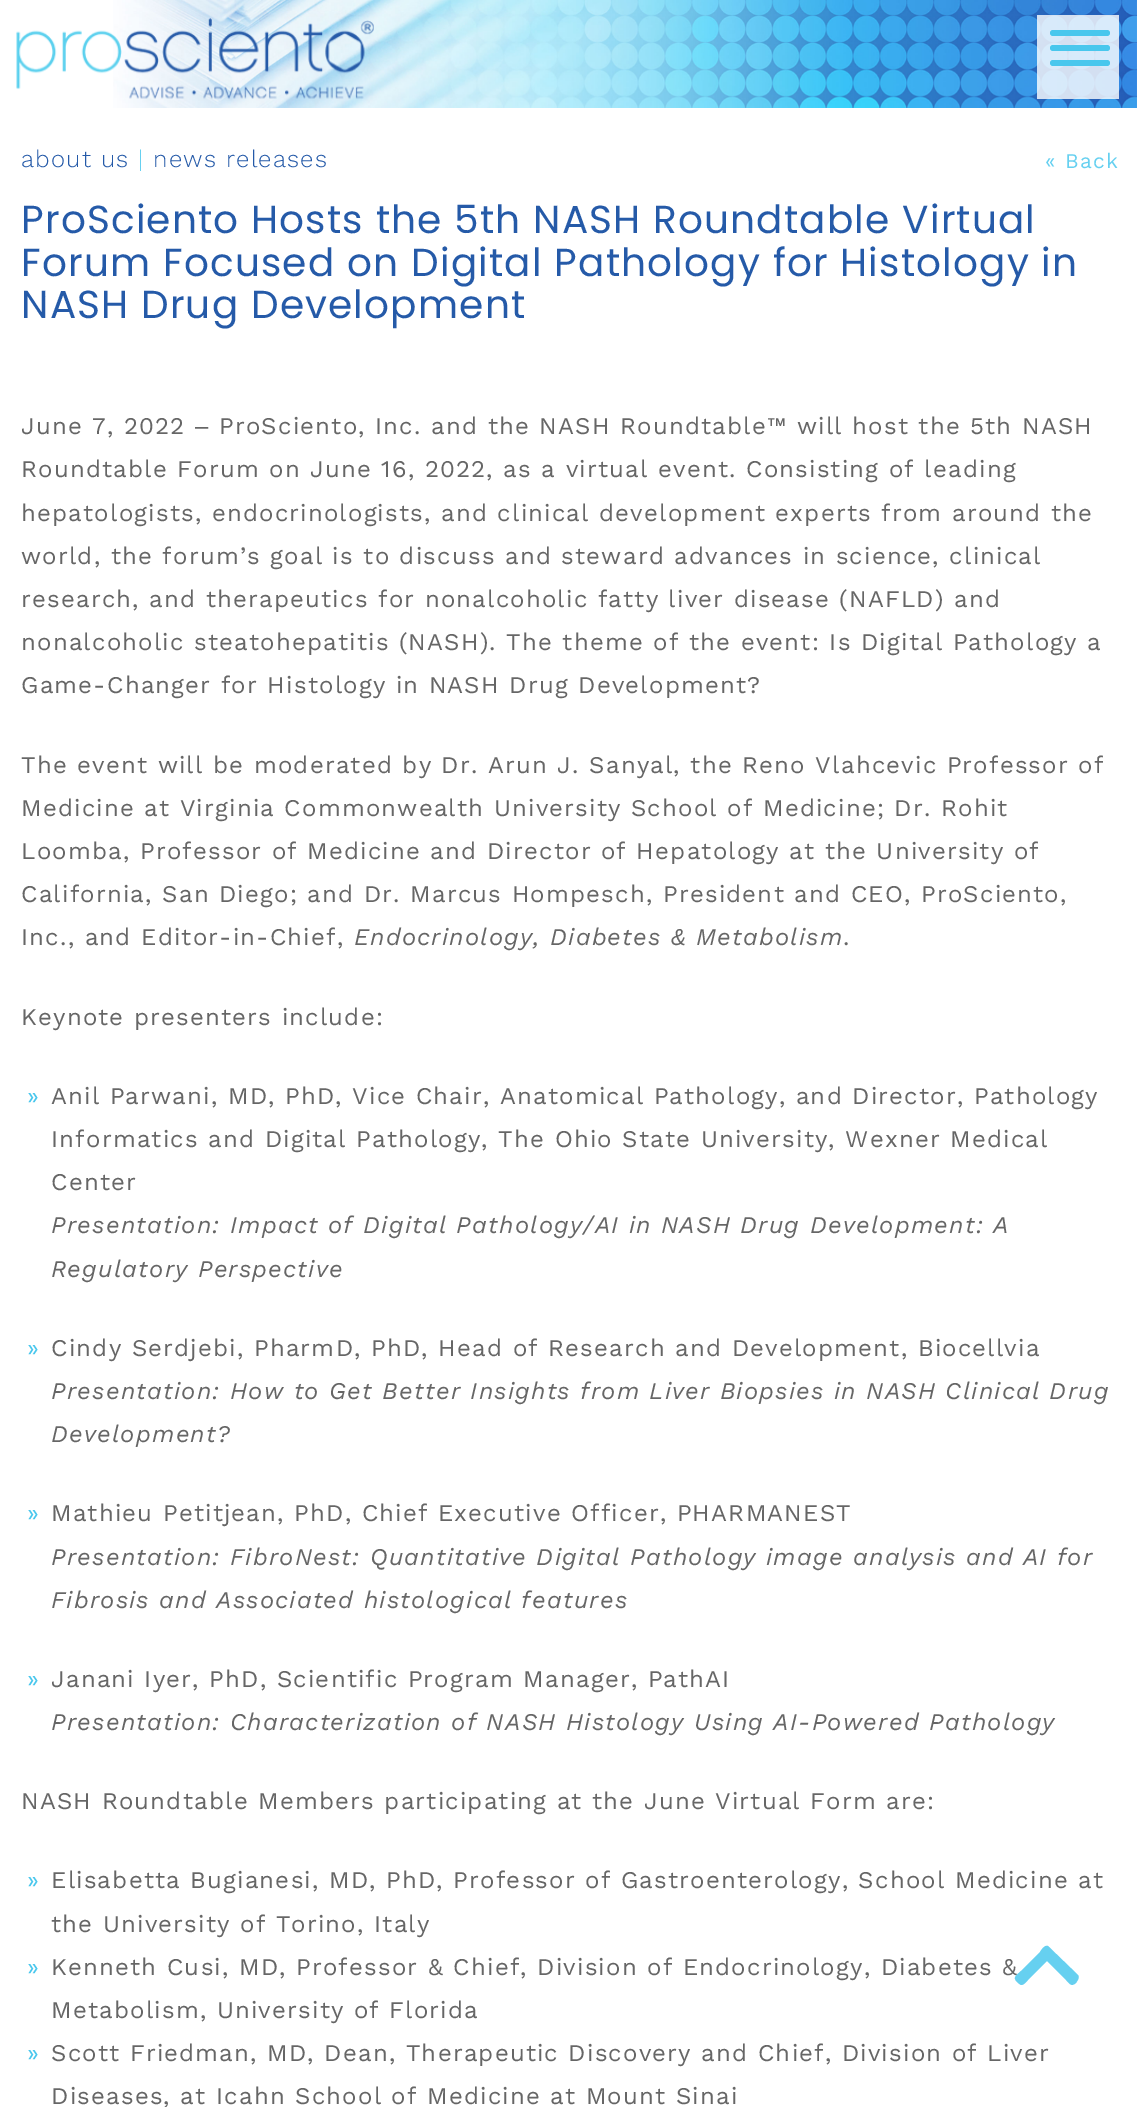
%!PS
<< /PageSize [1137 2107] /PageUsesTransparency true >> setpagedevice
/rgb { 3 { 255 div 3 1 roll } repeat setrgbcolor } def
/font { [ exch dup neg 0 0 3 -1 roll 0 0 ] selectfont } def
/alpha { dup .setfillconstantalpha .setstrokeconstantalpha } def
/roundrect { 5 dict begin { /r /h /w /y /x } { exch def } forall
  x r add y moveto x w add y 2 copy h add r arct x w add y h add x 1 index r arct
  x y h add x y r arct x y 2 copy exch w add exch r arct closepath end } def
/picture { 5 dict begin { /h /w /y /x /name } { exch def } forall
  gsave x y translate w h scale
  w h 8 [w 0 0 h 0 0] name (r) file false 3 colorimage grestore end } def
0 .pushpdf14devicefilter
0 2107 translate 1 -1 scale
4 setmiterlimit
255 255 255 rgb
0 0 1137 2107 rectfill
(img/1.rgb) 113 0 1024 108 picture
(img/2.rgb) 16 18 358 81 picture
0.8 alpha
1037 15 82 84 rectfill
1 alpha
73 199 237 rgb
1050 30 60 6 3 roundrect fill
1050 45 60 6 3 roundrect fill
1050 60 60 6 3 roundrect fill
/WorkSans-Light 24 font
37 90 168 rgb
21 167 moveto 1.2 0 (about us) ashow
102 208 240 rgb
138 167 moveto 1.2 0 (|) ashow
37 90 168 rgb
153 167 moveto 1.2 0 (news releases) ashow
/WorkSans-Regular 21 font
102 208 240 rgb
1045 168 moveto 1.2 0 (« Back) ashow
/Poppins-Regular 39 font
37 90 168 rgb
21 233 moveto 1.2 0 (ProSciento Hosts the 5th NASH Roundtable Virtual) ashow
21 276 moveto 1.2 0 (Forum Focused on Digital Pathology for Histology in) ashow
21 318 moveto 1.2 0 (NASH Drug Development) ashow
/WorkSans-Regular 24 font
102 102 102 rgb
21 434 moveto 1.2 0 (June 7, 2022) ashow
/LiberationSans-Regular 24 font
195 434 moveto 1.2 0 (‒) ashow
/WorkSans-Regular 24 font
219 434 moveto 1.2 0 (ProSciento, Inc. and the NASH Roundtable™ will host the 5th NASH) ashow
21 477 moveto 1.2 0 (Roundtable Forum on June 16, 2022, as a virtual event. Consisting of leading) ashow
21 521 moveto 1.2 0 (hepatologists, endocrinologists, and clinical development experts from around the) ashow
21 564 moveto 1.2 0 (world, the forum’s goal is to discuss and steward advances in science, clinical) ashow
21 607 moveto 1.2 0 (research, and therapeutics for nonalcoholic fatty liver disease \(NAFLD\) and) ashow
21 650 moveto 1.2 0 (nonalcoholic steatohepatitis \(NASH\). The theme of the event: Is Digital Pathology a) ashow
21 693 moveto 1.2 0 (Game-Changer for Histology in NASH Drug Development?) ashow
21 773 moveto 1.2 0 (The event will be moderated by Dr. Arun J. Sanyal, the Reno Vlahcevic Professor of) ashow
21 816 moveto 1.2 0 (Medicine at Virginia Commonwealth University School of Medicine; Dr. Rohit) ashow
21 859 moveto 1.2 0 (Loomba, Professor of Medicine and Director of Hepatology at the University of) ashow
21 902 moveto 1.2 0 (California, San Diego; and Dr. Marcus Hompesch, President and CEO, ProSciento,) ashow
21 945 moveto 1.2 0 (Inc., and Editor-in-Chief,) ashow
/WorkSans-Italic 24 font
354 945 moveto 1.2 0 (Endocrinology, Diabetes & Metabolism) ashow
/WorkSans-Regular 24 font
843 945 moveto 1.2 0 (.) ashow
21 1025 moveto 1.2 0 (Keynote presenters include:) ashow
73 199 237 rgb
27 1104 moveto 1.2 0 (») ashow
102 102 102 rgb
51 1104 moveto 1.2 0 (Anil Parwani, MD, PhD, Vice Chair, Anatomical Pathology, and Director, Pathology) ashow
51 1147 moveto 1.2 0 (Informatics and Digital Pathology, The Ohio State University, Wexner Medical) ashow
51 1190 moveto 1.2 0 (Center) ashow
/WorkSans-Italic 24 font
51 1233 moveto 1.2 0 (Presentation: Impact of Digital Pathology/AI in NASH Drug Development: A) ashow
51 1277 moveto 1.2 0 (Regulatory Perspective) ashow
/WorkSans-Regular 24 font
73 199 237 rgb
27 1356 moveto 1.2 0 (») ashow
102 102 102 rgb
51 1356 moveto 1.2 0 (Cindy Serdjebi, PharmD, PhD, Head of Research and Development, Biocellvia) ashow
/WorkSans-Italic 24 font
51 1399 moveto 1.2 0 (Presentation: How to Get Better Insights from Liver Biopsies in NASH Clinical Drug) ashow
51 1442 moveto 1.2 0 (Development?) ashow
/WorkSans-Regular 24 font
73 199 237 rgb
27 1521 moveto 1.2 0 (») ashow
102 102 102 rgb
51 1521 moveto 1.2 0 (Mathieu Petitjean, PhD, Chief Executive Officer, PHARMANEST) ashow
/WorkSans-Italic 24 font
51 1565 moveto 1.2 0 (Presentation: FibroNest: Quantitative Digital Pathology image analysis and AI for) ashow
51 1608 moveto 1.2 0 (Fibrosis and Associated histological features) ashow
/WorkSans-Regular 24 font
73 199 237 rgb
27 1687 moveto 1.2 0 (») ashow
102 102 102 rgb
51 1687 moveto 1.2 0 (Janani Iyer, PhD, Scientific Program Manager, PathAI) ashow
/WorkSans-Italic 24 font
51 1730 moveto 1.2 0 (Presentation: Characterization of NASH Histology Using AI-Powered Pathology) ashow
/WorkSans-Regular 24 font
21 1809 moveto 1.2 0 (NASH Roundtable Members participating at the June Virtual Form are:) ashow
73 199 237 rgb
27 1888 moveto 1.2 0 (») ashow
102 102 102 rgb
51 1888 moveto 1.2 0 (Elisabetta Bugianesi, MD, PhD, Professor of Gastroenterology, School Medicine at) ashow
51 1932 moveto 1.2 0 (the University of Torino, Italy) ashow
73 199 237 rgb
27 1975 moveto 1.2 0 (») ashow
102 102 102 rgb
51 1975 moveto 1.2 0 (Kenneth Cusi, MD, Professor & Chief, Division of Endocrinology, Diabetes &) ashow
51 2018 moveto 1.2 0 (Metabolism, University of Florida) ashow
73 199 237 rgb
27 2061 moveto 1.2 0 (») ashow
102 102 102 rgb
51 2061 moveto 1.2 0 (Scott Friedman, MD, Dean, Therapeutic Discovery and Chief, Division of Liver) ashow
51 2104 moveto 1.2 0 (Diseases, at Icahn School of Medicine at Mount Sinai) ashow
102 208 240 rgb
1049 1947 moveto 1078 1975 lineto 1080 1978 1077 1981 1076 1983 curveto 1071 1987 1070 1984 1066 1980 curveto 1047 1961 lineto 1028 1980 lineto 1026 1982 1024 1985 1021 1985 curveto 1019 1984 1018 1983 1017 1982 curveto 1012 1977 1017 1975 1021 1971 curveto 1040 1952 lineto 1041 1950 1046 1943 1049 1947 curveto closepath fill
.poppdf14devicefilter showpage
